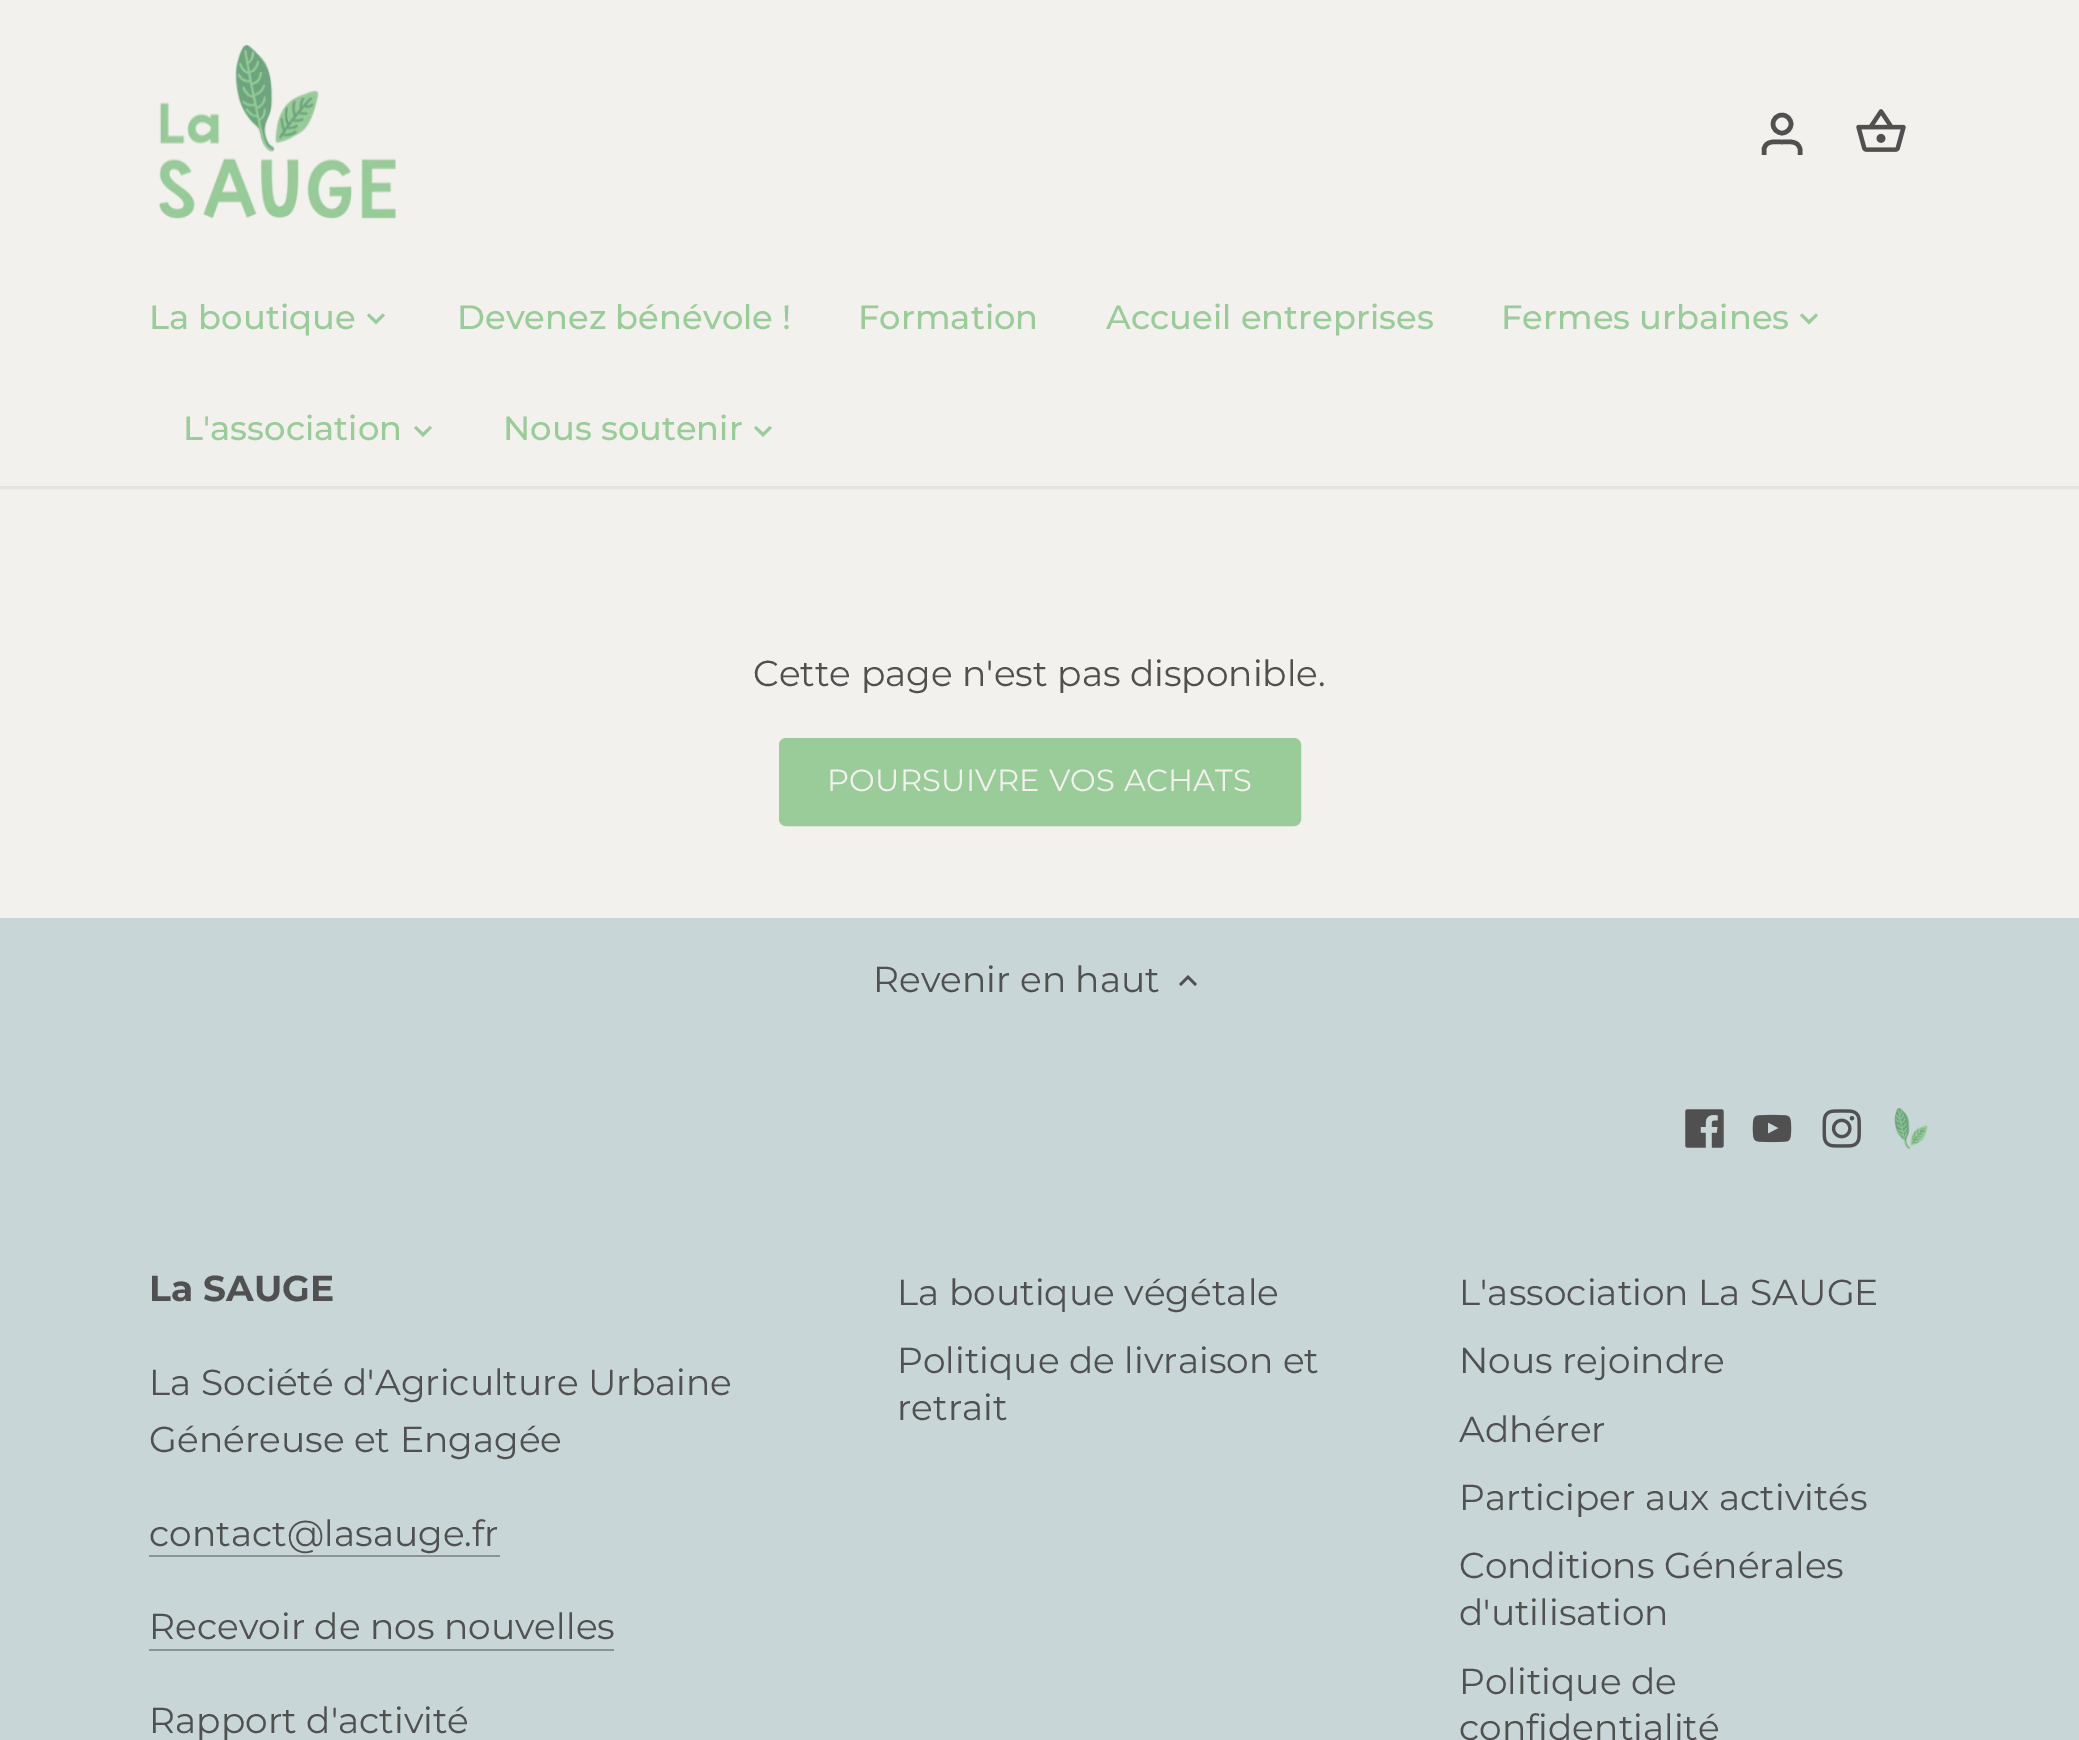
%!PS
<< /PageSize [2079 1740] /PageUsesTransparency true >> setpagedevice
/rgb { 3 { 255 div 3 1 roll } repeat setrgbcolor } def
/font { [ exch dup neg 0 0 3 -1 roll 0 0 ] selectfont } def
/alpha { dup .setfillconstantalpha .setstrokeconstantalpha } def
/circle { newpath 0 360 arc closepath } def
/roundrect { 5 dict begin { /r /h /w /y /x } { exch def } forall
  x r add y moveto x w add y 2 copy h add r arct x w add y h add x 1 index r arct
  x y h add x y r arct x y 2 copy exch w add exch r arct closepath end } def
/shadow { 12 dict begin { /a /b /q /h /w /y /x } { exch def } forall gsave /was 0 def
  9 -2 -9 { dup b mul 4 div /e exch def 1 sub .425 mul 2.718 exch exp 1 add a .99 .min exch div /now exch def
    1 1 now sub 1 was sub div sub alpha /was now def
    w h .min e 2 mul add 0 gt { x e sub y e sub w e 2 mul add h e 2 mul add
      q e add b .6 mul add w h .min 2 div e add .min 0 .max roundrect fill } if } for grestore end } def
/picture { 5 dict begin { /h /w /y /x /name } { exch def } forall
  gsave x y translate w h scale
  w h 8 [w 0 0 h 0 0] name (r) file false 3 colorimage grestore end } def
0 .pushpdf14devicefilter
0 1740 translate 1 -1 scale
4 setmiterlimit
200 214 215 rgb
0 0 2079 1740 rectfill
243 241 238 rgb
0 0 2079 918 rectfill
gsave
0 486 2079 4 rectclip
0 0 0 rgb
-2 -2 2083 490 0 3.5 0.08 shadow
grestore
(img/1.rgb) 158 45 238 174 picture
80 80 80 rgb
4.5 setlinewidth
1782 124 9 circle stroke
1800 155 moveto 1800 149 lineto 1798 140 1788.5 142 1782 142 curveto 1775.5 142 1766 140 1764 149 curveto 1764 155 lineto stroke
(img/2.rgb) 1856 109 50 43 picture
154 204 154 rgb
369 313.5 moveto 376 320 lineto 382.5 313.5 lineto 385 315.5 lineto 376 324.5 lineto 367 315.5 lineto closepath fill
1802 313.5 moveto 1809 320 lineto 1816 313.5 lineto 1818 315.5 lineto 1809 324.5 lineto 1800 315.5 lineto closepath fill
416 426 moveto 423 432.5 lineto 430 426 lineto 432 428 lineto 423 437 lineto 414 428 lineto closepath fill
756 426 moveto 763 432.5 lineto 769.5 426 lineto 772 428 lineto 763 437 lineto 754 428 lineto closepath fill
781.5 740.5 517 83 4.5 roundrect gsave fill grestore
5 setlinewidth
stroke
80 80 80 rgb
1181 986 moveto 1188 979 lineto 1195 986 lineto 1197 984 lineto 1188 975 lineto 1179 984 lineto closepath fill
(img/3.rgb) 1685 1109 39 39 picture
(img/4.rgb) 1752 1114 40 29 picture
(img/5.rgb) 1822 1109 39 39 picture
(img/6.rgb) 1894 1107 34 42 picture
140 147 148 rgb
149 1555 351 2 rectfill
149 1649 465 2 rectfill
/Montserrat-Medium 33.75 font
154 204 154 rgb
[
  [(La boutique) 149 329]
  [(Devenez bénévole !) 457 329]
  [(Formation) 858 329]
  [(Accueil entreprises) 1106 329]
  [(Fermes urbaines) 1501 329]
  [(L'association) 183 440]
  [(Nous soutenir) 503 440]
] { aload pop moveto show } forall
/Montserrat-Regular 36 font
80 80 80 rgb
753 686 moveto (Cette page n'est pas disponible.) show
/Montserrat-Regular 30.6 font
243 241 238 rgb
827 791 moveto 0.3 0 (POURSUIVRE VOS ACHATS) ashow
/Montserrat-Regular 36 font
80 80 80 rgb
873 992 moveto (Revenir en haut) show
/Montserrat-Bold 36 font
149 1301 moveto (La SAUGE) show
/Montserrat-Regular 36 font
[
  [(La Société d'Agriculture Urbaine) 149 1395]
  [(Généreuse et Engagée) 149 1452]
  [(contact@lasauge.fr) 149 1546]
  [(Recevoir de nos nouvelles) 149 1639]
  [(Rapport d'activité) 149 1733]
  [(La boutique végétale) 897 1305]
  [(Politique de livraison et) 897 1373]
  [(retrait) 897 1420]
  [(L'association La SAUGE) 1459 1305]
  [(Nous rejoindre) 1459 1373]
  [(Adhérer) 1459 1442]
  [(Participer aux activités) 1459 1510]
  [(Conditions Générales) 1459 1578]
  [(d'utilisation) 1459 1625]
  [(Politique de) 1459 1694]
  [(confidentialité) 1459 1740]
] { aload pop moveto show } forall
.poppdf14devicefilter showpage
